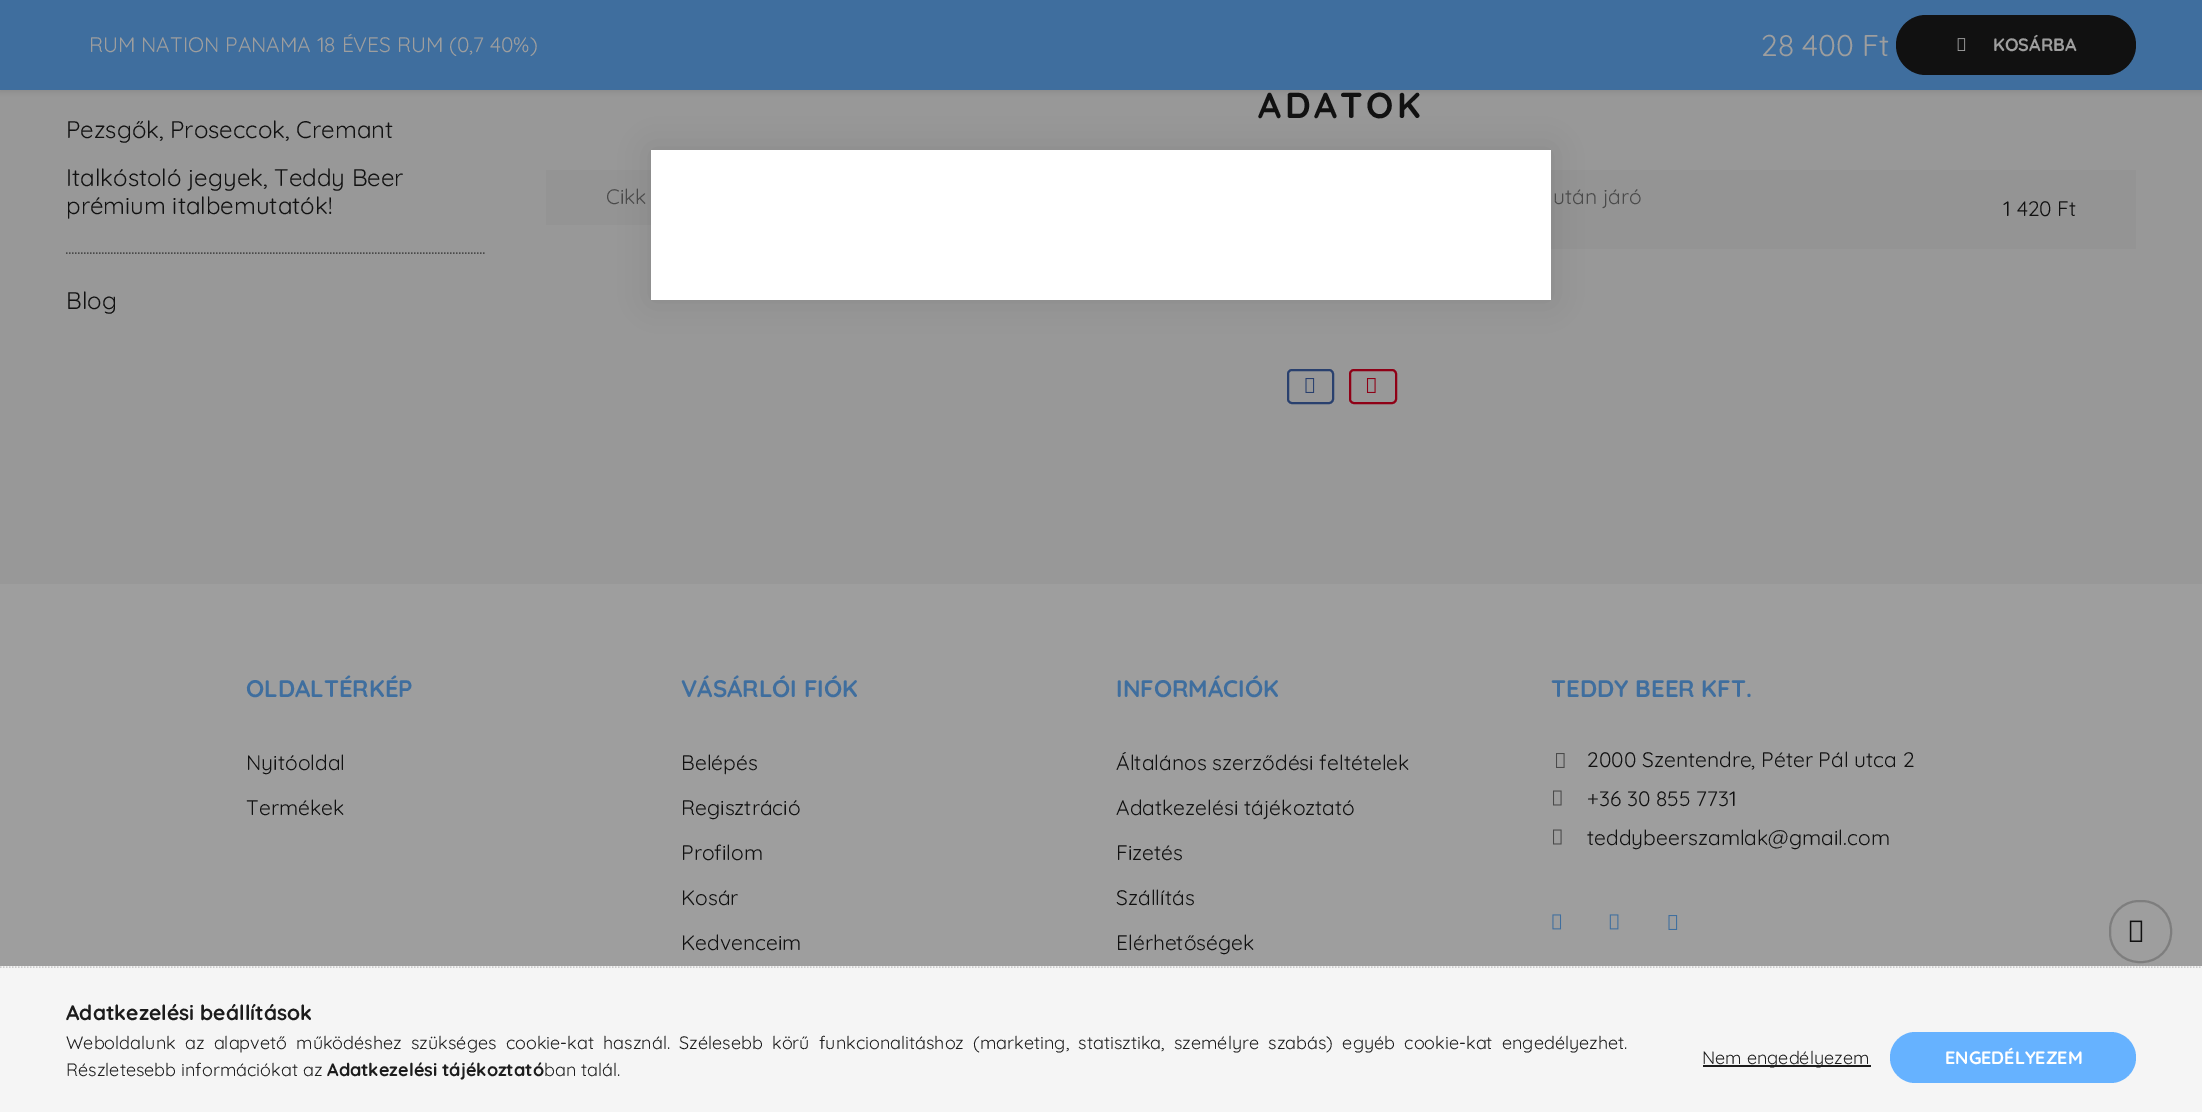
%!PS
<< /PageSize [2202 1112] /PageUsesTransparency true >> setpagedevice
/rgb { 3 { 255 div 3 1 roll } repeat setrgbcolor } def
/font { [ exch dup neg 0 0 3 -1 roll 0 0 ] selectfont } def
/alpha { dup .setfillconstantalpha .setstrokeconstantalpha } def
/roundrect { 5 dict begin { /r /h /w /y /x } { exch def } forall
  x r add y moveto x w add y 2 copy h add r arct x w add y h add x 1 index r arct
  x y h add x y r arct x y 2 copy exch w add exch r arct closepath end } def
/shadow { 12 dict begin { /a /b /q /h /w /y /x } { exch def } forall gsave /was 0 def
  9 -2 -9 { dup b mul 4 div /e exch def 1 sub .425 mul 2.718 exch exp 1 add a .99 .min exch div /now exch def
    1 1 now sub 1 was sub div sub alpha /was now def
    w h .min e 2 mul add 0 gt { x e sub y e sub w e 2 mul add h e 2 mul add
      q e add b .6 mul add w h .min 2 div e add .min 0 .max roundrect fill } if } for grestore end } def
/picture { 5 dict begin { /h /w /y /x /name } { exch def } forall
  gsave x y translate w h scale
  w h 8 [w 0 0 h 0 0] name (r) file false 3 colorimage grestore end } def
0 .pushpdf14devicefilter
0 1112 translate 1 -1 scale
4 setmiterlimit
152 152 152 rgb
0 0 2202 1112 rectfill
0 0 0 rgb
0 2 2202 90 0 2 0.07 shadow
63 110 158 rgb
0 0 2202 90 rectfill
17 17 17 rgb
1896 15 240 60 30 roundrect fill
(img/1.rgb) 1957 38 9 13 picture
148 148 148 rgb
546 170 105 55 rectfill
1551 170 585 79 rectfill
41 64 110 rgb
2 setlinewidth
1288 370 45 33 4 roundrect stroke
(img/2.rgb) 1305 378 10 15 picture
143 0 22 rgb
1350 370 46 33 4 roundrect stroke
(img/3.rgb) 1366 378 10 15 picture
74 74 74 rgb
1.5 setlinewidth
[1.5 1.5] 0 setdash
66 253 moveto 486 253 lineto stroke
158 158 158 rgb
0 584 2202 382 rectfill
(img/4.rgb) 1556 753 9 15 picture
(img/5.rgb) 1553 790 9 16 picture
(img/5.rgb) 1553 829 9 16 picture
(img/6.rgb) 1552 914 10 16 picture
(img/7.rgb) 1609 914 10 16 picture
(img/8.rgb) 1668 915 10 15 picture
0 0 0 rgb
651 150 900 150 0 15 0.1 shadow
255 255 255 rgb
651 150 900 150 rectfill
126 126 126 rgb
2 setlinewidth
[] 0 setdash
2110 901 61 61 29 roundrect stroke
(img/9.rgb) 2129 920 14 22 picture
245 245 245 rgb
0 966 2202 146 rectfill
204 204 204 rgb
1.5 setlinewidth
[1.5 1.5] 0 setdash
0 967 moveto 2202 967 lineto stroke
28 28 28 rgb
1703 1065 168 2 rectfill
102 178 255 rgb
1890 1032 246 51 25.5 roundrect fill
/Quicksand-Regular 21 font
158 158 158 rgb
89 52 moveto (RUM NATION PANAMA 18 ÉVES RUM \(0,7 40%\)) show
/Quicksand-Regular 30 font
1761 56 moveto (28 400 Ft) show
/Quicksand-Bold 18 font
1993 51 moveto (KOSÁRBA) show
/Quicksand-Bold 36 font
17 17 17 rgb
1258 118 moveto 3.5 0 (ADATOK) ashow
/Quicksand-Regular 21 font
74 74 74 rgb
606 204 moveto (Cikk) show
1553 204 moveto (után járó) show
17 17 17 rgb
2003 216 moveto (1 420 Ft) show
/Quicksand-Regular 24 font
[
  [(Pezsgők, Proseccok, Cremant) 66 138]
  [(Italkóstoló jegyek, Teddy Beer) 66 186]
  [(prémium italbemutatók!) 66 214]
  [(Blog) 66 309]
] { aload pop moveto show } forall
/Quicksand-Bold 24 font
63 110 158 rgb
246 697 moveto (OLDALTÉRKÉP) show
/Quicksand-Regular 21 font
17 17 17 rgb
246 770 moveto (Nyitóoldal) show
246 815 moveto (Termékek) show
/Quicksand-Bold 24 font
63 110 158 rgb
681 697 moveto (VÁSÁRLÓI FIÓK) show
/Quicksand-Regular 21 font
17 17 17 rgb
[
  [(Belépés) 681 770]
  [(Regisztráció) 681 815]
  [(Profilom) 681 860]
  [(Kosár) 681 905]
  [(Kedvenceim) 681 950]
] { aload pop moveto show } forall
/Quicksand-Bold 24 font
63 110 158 rgb
1116 697 moveto (INFORMÁCIÓK) show
/Quicksand-Regular 21 font
17 17 17 rgb
[
  [(Általános szerződési feltételek) 1116 770]
  [(Adatkezelési tájékoztató) 1116 815]
  [(Fizetés) 1116 860]
  [(Szállítás) 1116 905]
  [(Elérhetőségek) 1116 950]
] { aload pop moveto show } forall
/Quicksand-Bold 24 font
63 110 158 rgb
1551 697 moveto (TEDDY BEER KFT.) show
/Quicksand-Regular 21 font
17 17 17 rgb
[
  [(2000 Szentendre, Péter Pál utca 2) 1587 767]
  [(+36 30 855 7731) 1587 806]
  [(teddybeerszamlak@gmail.com) 1587 845]
] { aload pop moveto show } forall
/Quicksand-Bold 21 font
28 28 28 rgb
66 1020 moveto (Adatkezelési beállítások) show
/Quicksand-Regular 18 font
66 1049 moveto 4.25 0 32 (Weboldalunk az alapvető működéshez szükséges cookie-kat használ. Szélesebb körű funkcionalitáshoz \(marketing, statisztika, személyre szabás\) egyéb cookie-kat engedélyezhet.) widthshow
66 1076 moveto (Részletesebb információkat az) show
/Quicksand-Bold 18 font
327 1076 moveto (Adatkezelési tájékoztató) show
/Quicksand-Regular 18 font
544 1076 moveto (ban talál.) show
1702 1064 moveto (Nem engedélyezem) show
/Quicksand-Bold 18 font
255 255 255 rgb
1945 1064 moveto (ENGEDÉLYEZEM) show
.poppdf14devicefilter showpage
